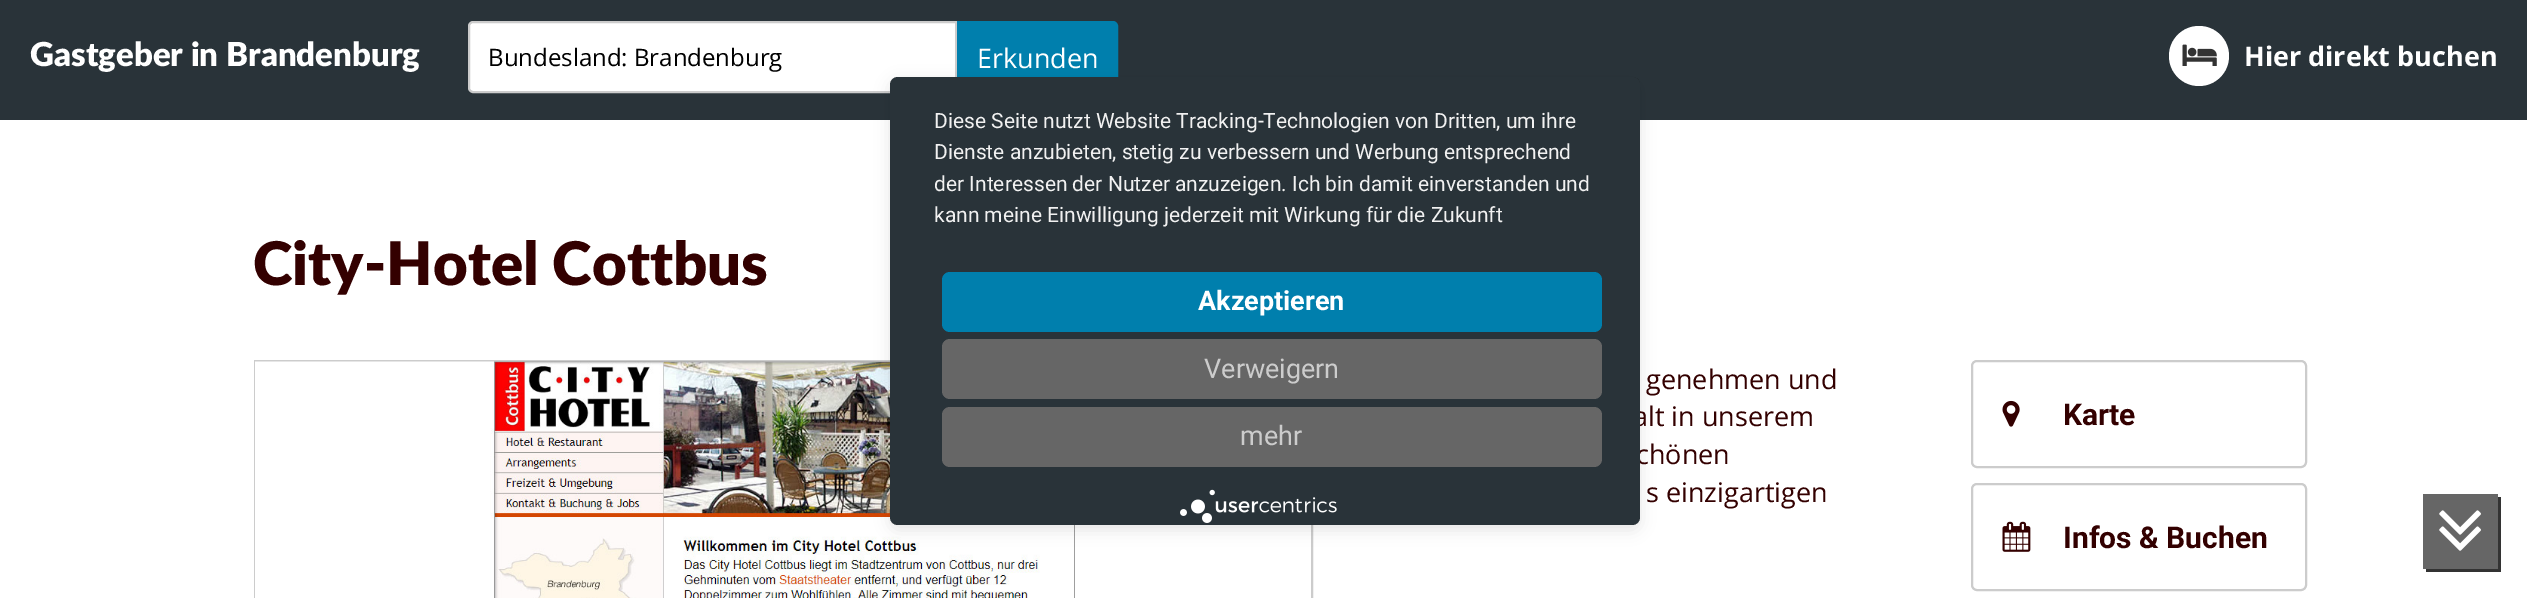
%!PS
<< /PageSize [2527 598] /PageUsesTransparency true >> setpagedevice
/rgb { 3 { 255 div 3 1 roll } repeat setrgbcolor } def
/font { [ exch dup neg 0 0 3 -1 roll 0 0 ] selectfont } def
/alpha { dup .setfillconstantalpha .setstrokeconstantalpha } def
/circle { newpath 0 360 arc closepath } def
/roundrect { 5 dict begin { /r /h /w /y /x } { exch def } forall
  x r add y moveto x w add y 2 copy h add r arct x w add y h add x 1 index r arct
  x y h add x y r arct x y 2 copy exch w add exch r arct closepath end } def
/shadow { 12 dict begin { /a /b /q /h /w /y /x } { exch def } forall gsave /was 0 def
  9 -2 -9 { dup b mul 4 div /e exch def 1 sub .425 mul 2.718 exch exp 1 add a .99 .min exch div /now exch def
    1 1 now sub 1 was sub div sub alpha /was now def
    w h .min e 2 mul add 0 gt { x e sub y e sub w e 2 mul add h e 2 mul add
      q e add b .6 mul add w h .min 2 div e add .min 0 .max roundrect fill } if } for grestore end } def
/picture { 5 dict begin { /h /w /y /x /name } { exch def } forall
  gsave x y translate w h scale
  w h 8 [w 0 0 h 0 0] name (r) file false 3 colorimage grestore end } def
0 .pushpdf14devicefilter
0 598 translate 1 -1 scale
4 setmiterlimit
255 255 255 rgb
0 0 2527 598 rectfill
41 51 57 rgb
0 0 2527 120 rectfill
255 255 255 rgb
473 22 moveto 956 22 lineto 956 92 lineto 473 92 lineto 471 92 469 90 469 88 curveto 469 26 lineto 469 24 471 22 473 22 curveto closepath gsave fill grestore
204 204 204 rgb
2 setlinewidth
stroke
0 127 173 rgb
958 22 moveto 1113 22 lineto 1115 22 1117 24 1117 26 curveto 1117 88 lineto 1117 90 1115 92 1113 92 curveto 958 92 lineto closepath gsave fill grestore
stroke
255 255 255 rgb
2199 56 30 circle fill
(img/1.rgb) 2182 44 35 22 picture
204 204 204 rgb
255 361 1057 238 rectstroke
(img/3.rgb) 255 361 1056 237 picture
0 0 0 rgb
890 81 750 449 8 7.5 0.1 shadow
gsave
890 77 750 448 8 roundrect clip newpath
890 86 750 478 0 27 0.3 shadow
grestore
204 204 204 rgb
1972 361 334 106 5 roundrect stroke
(img/4.rgb) 2002 400 18 27 picture
1972 484 334 106 5 roundrect stroke
(img/5.rgb) 2002 521 29 31 picture
51 51 51 rgb
2426 568 moveto 2426 572 lineto 2501 572 lineto 2501 497 lineto 2498 497 lineto 2498 568 lineto closepath fill
102 102 102 rgb
2423 494 75 75 rectfill
(img/6.rgb) 2439 510 42 41 picture
/Lato-Black 33 font
255 255 255 rgb
30 66 moveto (Gastgeber in Brandenburg) show
/OpenSans-Regular 24 font
0 0 0 rgb
488 66 moveto (Bundesland: Brandenburg) show
/OpenSans-Regular 27 font
255 255 255 rgb
977 68 moveto (Erkunden) show
/OpenSans-Bold 27 font
2244 66 moveto (Hier direkt buchen) show
/Lato-Black 60 font
51 0 0 rgb
253 285 moveto (City-Hotel Cottbus) show
/OpenSans-Regular 27 font
[
  [(genehmen und) 1646 389]
  [(alt in unserem) 1633 426]
  [(chönen) 1636 464]
] { aload pop moveto show } forall
41 51 57 rgb
890 77 750 448 8 roundrect fill
(img/2.rgb) 1180 489 157 34 picture
102 102 102 rgb
942 407 660 60 8 roundrect fill
/Roboto-Regular 27 font
204 204 204 rgb
1240 445 moveto (mehr) show
102 102 102 rgb
942 339 660 60 8 roundrect fill
204 204 204 rgb
1204 378 moveto (Verweigern) show
0 127 173 rgb
942 272 660 60 8 roundrect fill
/Roboto-Bold 27 font
255 255 255 rgb
1198 310 moveto (Akzeptieren) show
/Roboto-Regular 21 font
241 241 241 rgb
934 222 moveto (kann meine Einwilligung jederzeit mit Wirkung für die Zukunft) show
gsave
935 107 660 142 rectclip
934 191 moveto (der Interessen der Nutzer anzuzeigen. Ich bin damit einverstanden und) show
grestore
934 159 moveto (Dienste anzubieten, stetig zu verbessern und Werbung entsprechend) show
934 128 moveto (Diese Seite nutzt Website Tracking-Technologien von Dritten, um ihre) show
/OpenSans-Regular 27 font
51 0 0 rgb
1646 502 moveto (s einzigartigen) show
/Roboto-Bold 30 font
2063 425 moveto (Karte) show
2063 548 moveto (Infos & Buchen) show
.poppdf14devicefilter showpage
